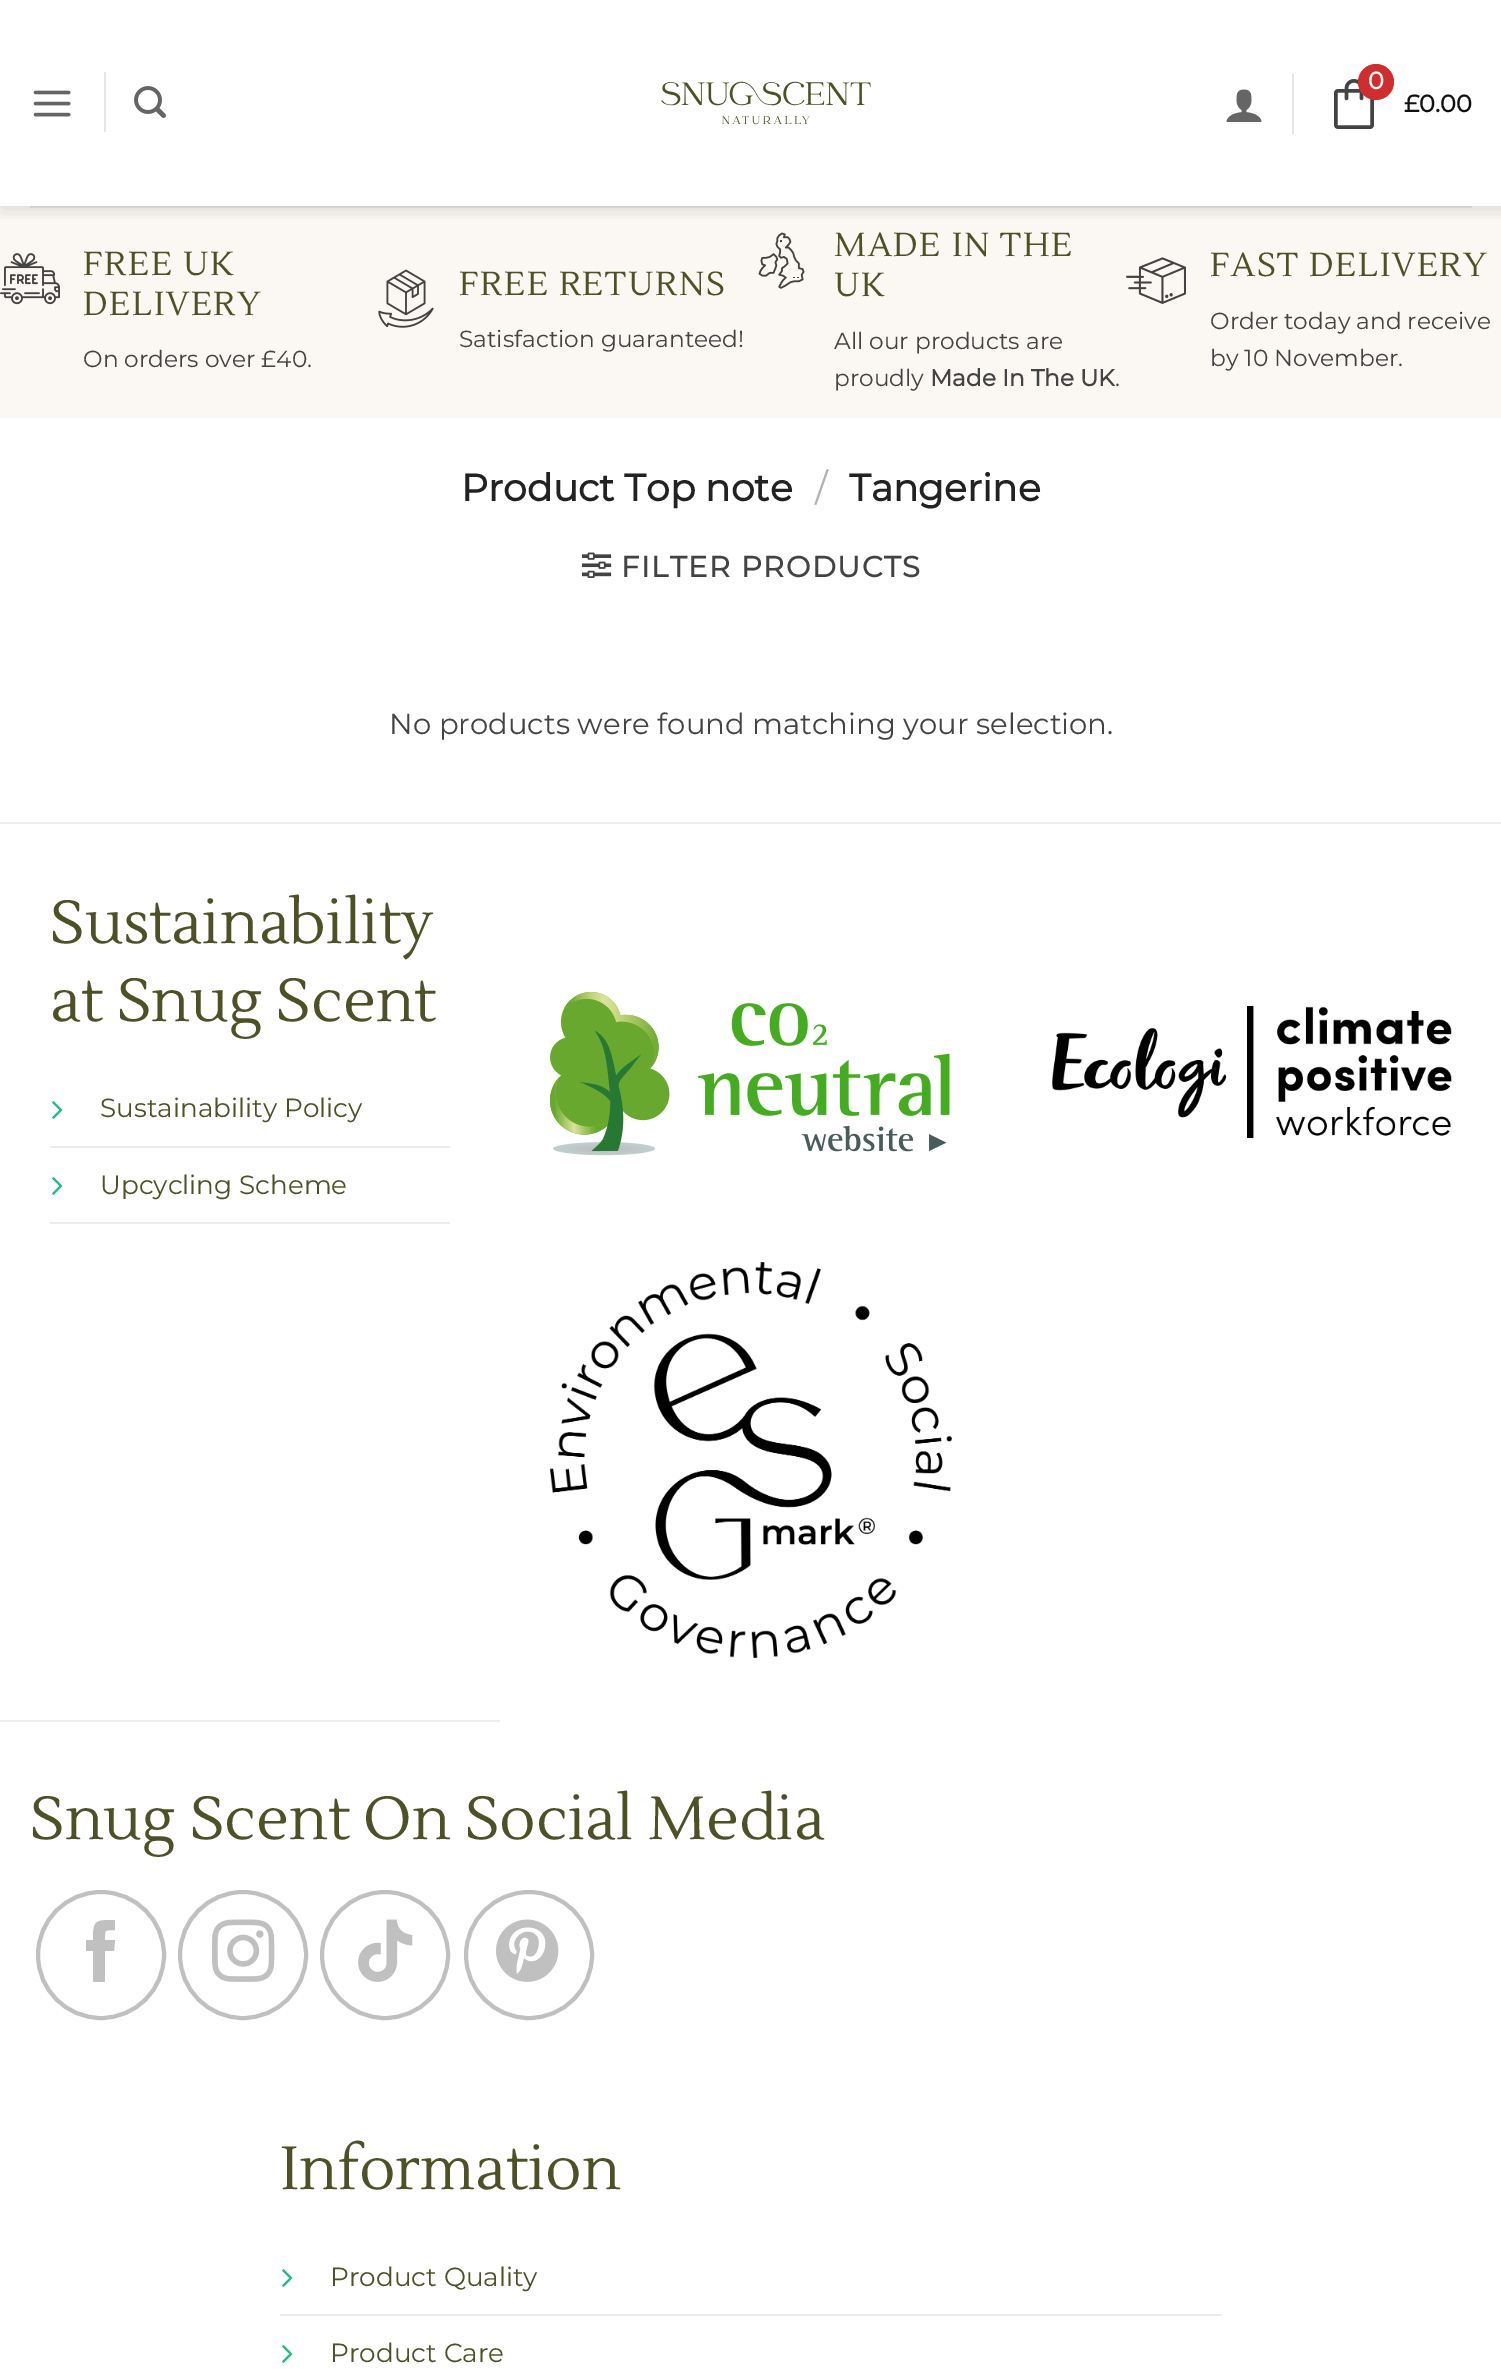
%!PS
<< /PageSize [1501 2369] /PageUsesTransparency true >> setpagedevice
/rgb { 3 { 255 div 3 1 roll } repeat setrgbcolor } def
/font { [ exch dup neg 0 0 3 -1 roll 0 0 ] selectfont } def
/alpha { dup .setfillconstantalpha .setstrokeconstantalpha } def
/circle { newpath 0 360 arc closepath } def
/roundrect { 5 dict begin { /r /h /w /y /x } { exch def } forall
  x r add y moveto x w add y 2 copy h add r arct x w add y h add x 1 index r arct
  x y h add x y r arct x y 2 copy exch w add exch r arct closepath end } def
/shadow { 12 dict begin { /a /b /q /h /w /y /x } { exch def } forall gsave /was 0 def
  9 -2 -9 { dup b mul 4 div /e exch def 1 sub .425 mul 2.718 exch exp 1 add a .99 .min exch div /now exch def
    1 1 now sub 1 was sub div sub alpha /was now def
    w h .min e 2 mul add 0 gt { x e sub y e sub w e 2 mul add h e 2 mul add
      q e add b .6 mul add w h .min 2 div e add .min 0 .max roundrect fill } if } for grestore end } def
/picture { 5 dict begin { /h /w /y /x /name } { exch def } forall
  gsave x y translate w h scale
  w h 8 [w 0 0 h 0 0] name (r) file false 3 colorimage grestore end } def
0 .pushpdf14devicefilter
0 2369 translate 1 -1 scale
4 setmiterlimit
255 255 255 rgb
0 0 1501 2369 rectfill
251 248 244 rgb
0 206 1501 212 rectfill
(img/8.rgb) 758 232 47 57 picture
gsave
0 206 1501 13 rectclip
0 0 0 rgb
2 2 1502 206 0 10 0.15 shadow
grestore
(img/1.rgb) 33 90 38 27 picture
230 230 230 rgb
104 72 2 60 rectfill
(img/2.rgb) 134 86 32 32 picture
(img/3.rgb) 661 81 210 44 picture
(img/4.rgb) 1226 89 36 33 picture
1292 74 2 60 rectfill
(img/5.rgb) 1334 79 40 50 picture
207 46 46 rgb
1376 82 18 circle fill
214 212 209 rgb
30 206 1442 2 rectfill
(img/6.rgb) 0 253 60 52 picture
(img/7.rgb) 378 269 56 59 picture
(img/9.rgb) 1126 257 60 47 picture
(img/10.rgb) 582 552 30 26 picture
237 237 237 rgb
0 822 1501 2 rectfill
236 236 236 rgb
50 1146 400 2 rectfill
(img/11.rgb) 52 1101 11 18 picture
50 1222 400 2 rectfill
(img/11.rgb) 52 1177 11 18 picture
(img/12.rgb) 550 992 400 164 picture
(img/13.rgb) 1052 1006 400 132 picture
(img/14.rgb) 550 1262 402 396 picture
237 237 237 rgb
0 1720 500 2 rectfill
192 192 192 rgb
4 setlinewidth
101 1955 63 circle stroke
105 1982 moveto 93 1982 lineto 93 1951 lineto 86 1951 lineto 86 1940 lineto 93 1940 lineto 93 1920 95 1920 115 1920 curveto 115 1930 lineto 104 1930 105 1930 105 1940 curveto 115 1940 lineto 114 1951 lineto 105 1951 lineto closepath fill
243 1955 63 circle stroke
(img/15.rgb) 212 1919 63 63 picture
385 1955 63 circle stroke
(img/16.rgb) 358 1919 55 63 picture
529 1955 63 circle stroke
(img/17.rgb) 496 1919 63 63 picture
236 236 236 rgb
280 2314 942 2 rectfill
(img/11.rgb) 282 2269 11 18 picture
(img/11.rgb) 282 2345 11 18 picture
/Montserrat-Bold 24 font
255 255 255 rgb
1368 89 moveto (0) show
17 17 17 rgb
1404 112 moveto (£0.00) show
/Lustria-Regular 33.25 font
78 81 38 rgb
83 275 moveto 1.7 0 (FREE UK) ashow
83 315 moveto 1.7 0 (DELIVERY) ashow
/Montserrat-Thin 23.25 font
68 67 68 rgb
83 367 moveto (On orders over £40.) show
/Lustria-Regular 33.25 font
78 81 38 rgb
459 295 moveto 1.7 0 (FREE RETURNS) ashow
/Montserrat-Thin 23.25 font
68 67 68 rgb
459 347 moveto (Satisfaction guaranteed!) show
/Lustria-Regular 33.25 font
78 81 38 rgb
834 256 moveto 1.7 0 (MADE IN THE) ashow
834 296 moveto 1.7 0 (UK) ashow
/Montserrat-Thin 23.25 font
68 67 68 rgb
834 349 moveto (All our products are) show
834 386 moveto (proudly) show
/Montserrat-Bold 23.25 font
930 386 moveto (Made In The UK) show
/Montserrat-Thin 23.25 font
1115 386 moveto (.) show
/Lustria-Regular 33.25 font
78 81 38 rgb
1210 276 moveto 1.7 0 (FAST DELIVERY) ashow
/Montserrat-Thin 23.25 font
68 67 68 rgb
1210 329 moveto (Order today and receive) show
1210 366 moveto (by 10 November.) show
/Montserrat-Bold 37.75 font
34 34 34 rgb
461 501 moveto (Product Top note) show
/Montserrat-Thin 37.75 font
178 178 178 rgb
815 501 moveto (/) show
/Montserrat-Bold 37.75 font
34 34 34 rgb
849 501 moveto (Tangerine) show
/Montserrat-Bold 29.1 font
68 67 68 rgb
621 577 moveto 1.5 0 (FILTER PRODUCTS) ashow
/Montserrat-Thin 29.1 font
389 734 moveto (No products were found matching your selection.) show
/Lustria-Regular 60.6 font
78 81 38 rgb
50 943 moveto (Sustainability) show
50 1021 moveto (at Snug Scent) show
/Montserrat-Thin 26.25 font
100 1117 moveto (Sustainability Policy) show
100 1194 moveto (Upcycling Scheme) show
/Lustria-Regular 60.6 font
30 1839 moveto (Snug Scent On Social Media) show
280 2189 moveto (Information) show
/Montserrat-Thin 26.25 font
330 2286 moveto (Product Quality) show
330 2362 moveto (Product Care) show
.poppdf14devicefilter showpage
